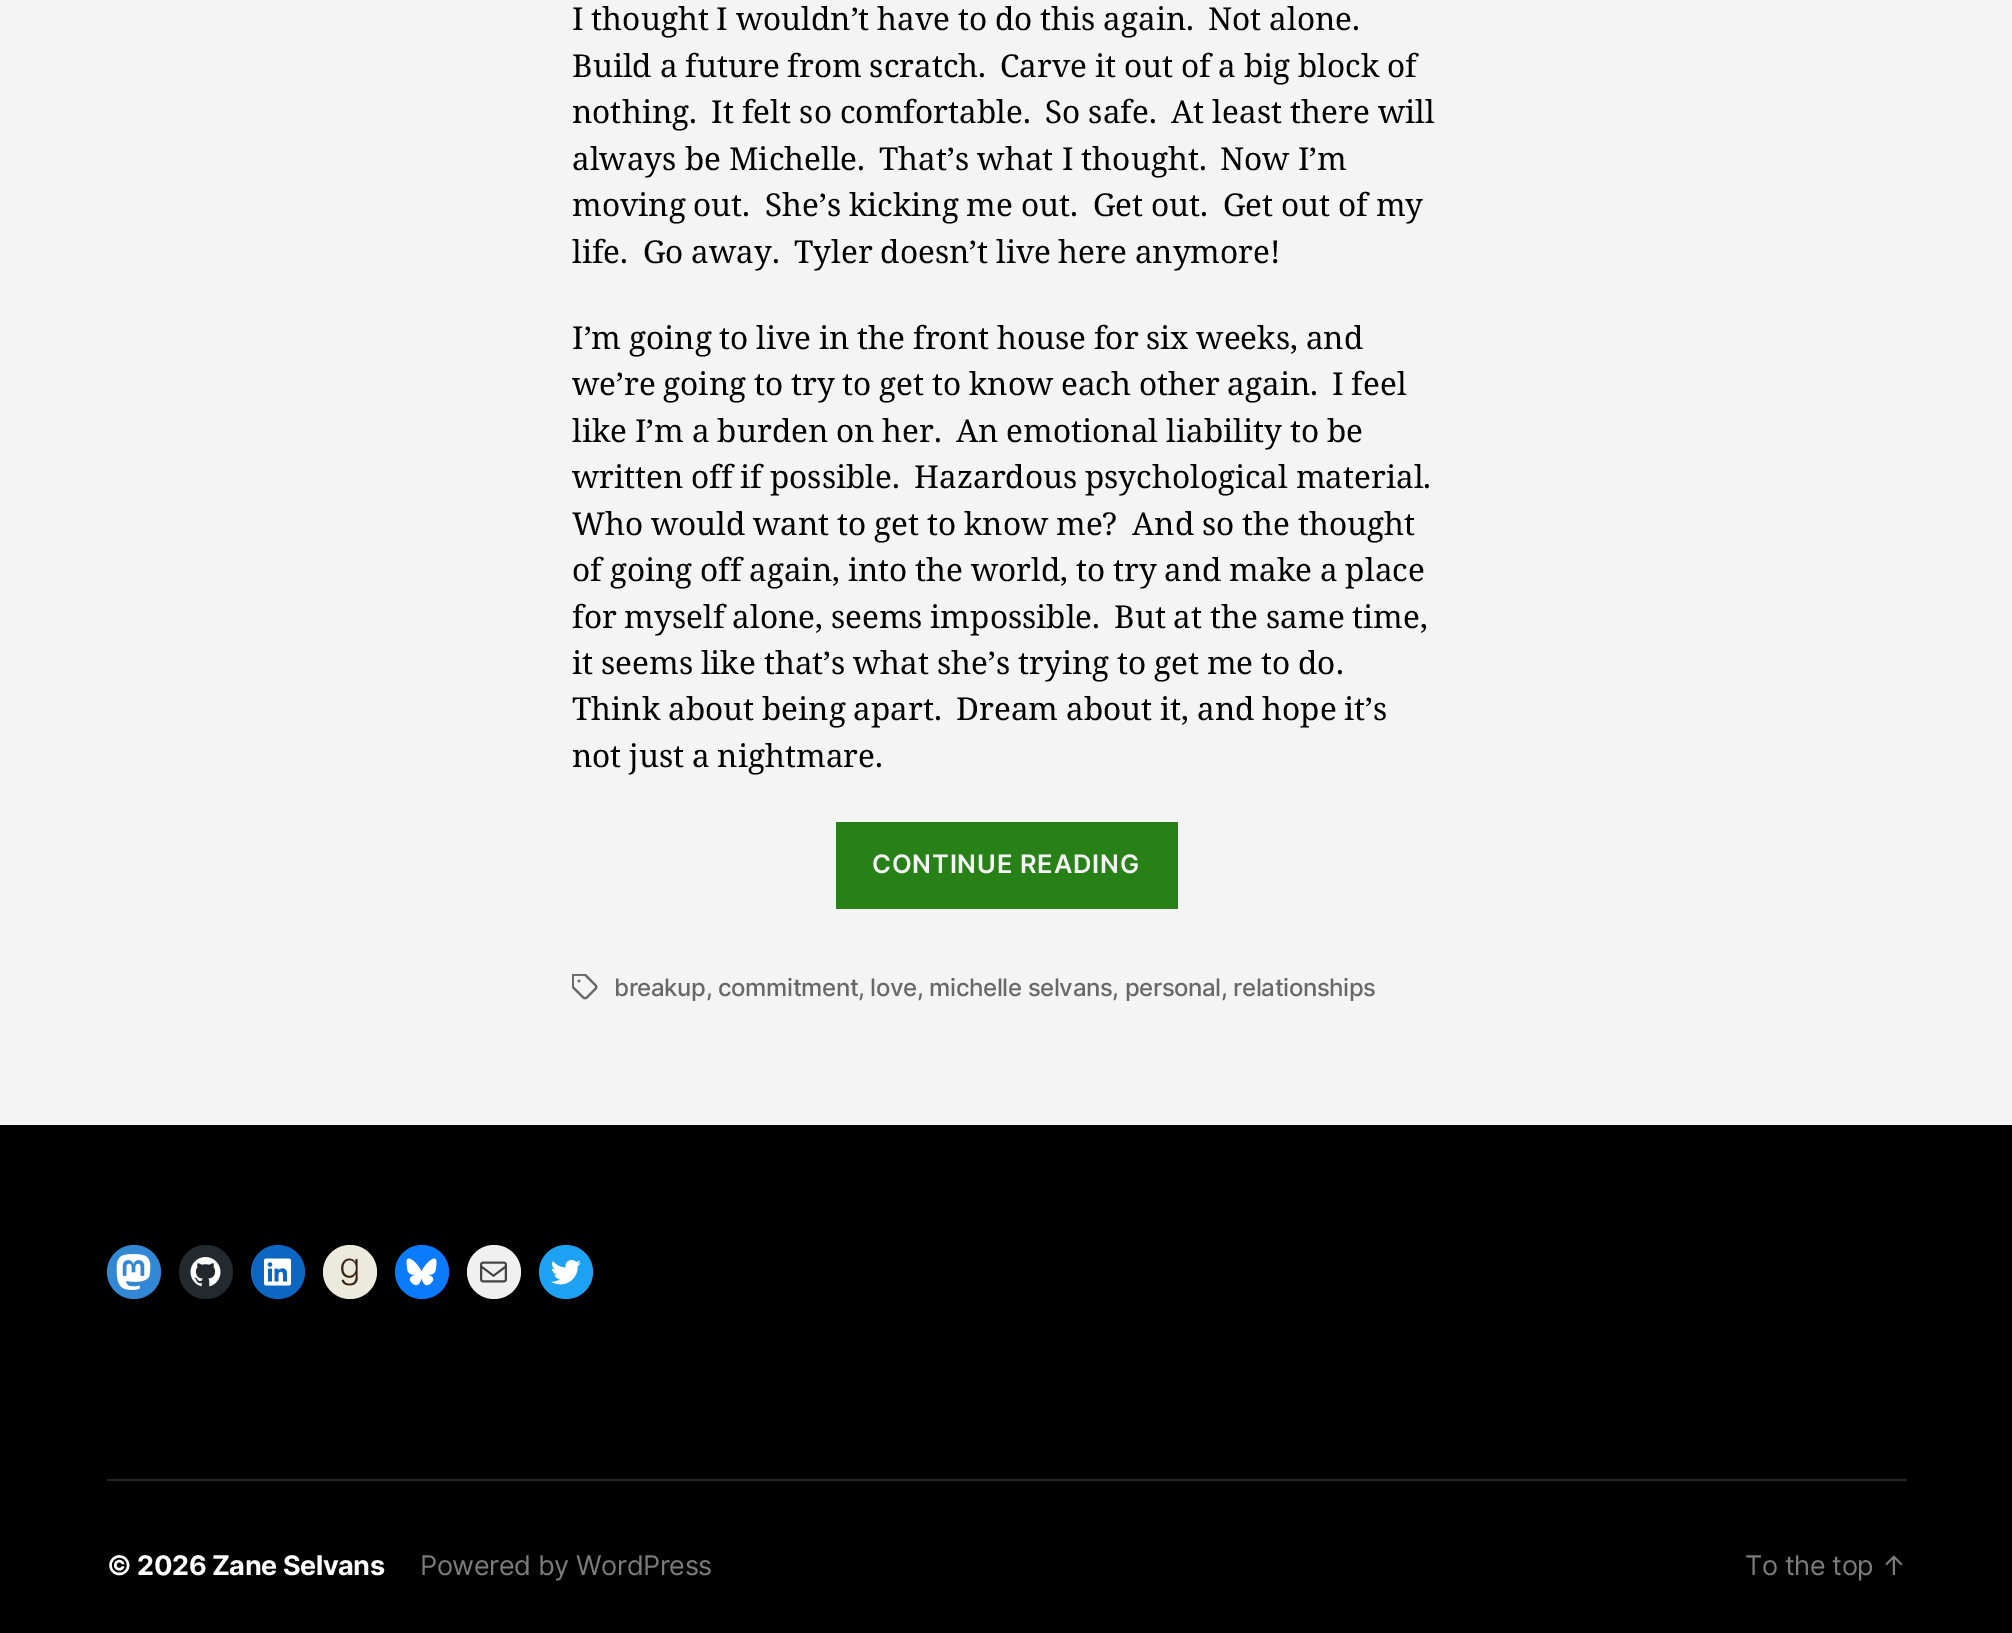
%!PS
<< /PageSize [2012 1633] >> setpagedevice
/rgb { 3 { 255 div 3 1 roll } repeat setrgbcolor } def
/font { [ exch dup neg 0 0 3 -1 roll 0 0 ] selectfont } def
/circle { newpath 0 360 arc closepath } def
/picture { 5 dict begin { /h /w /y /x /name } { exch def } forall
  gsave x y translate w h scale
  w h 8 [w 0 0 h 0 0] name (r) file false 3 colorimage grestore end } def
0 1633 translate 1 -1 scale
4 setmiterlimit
244 244 244 rgb
0 0 2012 1633 rectfill
39 129 23 rgb
836 822 342 87 rectfill
(img/1.rgb) 572 974 26 26 picture
0 0 0 rgb
0 1125 2012 508 rectfill
38 38 38 rgb
107 1479 1800 2 rectfill
50 136 212 rgb
134 1272 27 circle fill
(img/2.rgb) 116 1254 35 36 picture
36 41 45 rgb
206 1272 27 circle fill
(img/3.rgb) 190 1257 31 30 picture
13 102 194 rgb
278 1272 27 circle fill
(img/4.rgb) 264 1258 27 28 picture
236 234 221 rgb
350 1272 27 circle fill
(img/5.rgb) 341 1258 17 28 picture
10 122 255 rgb
422 1272 27 circle fill
(img/6.rgb) 406 1258 31 28 picture
240 240 240 rgb
494 1272 27 circle fill
(img/7.rgb) 480 1261 27 22 picture
29 161 242 rgb
566 1272 27 circle fill
(img/8.rgb) 551 1260 30 25 picture
/NotoSerif-Regular 31.5 font
0 0 0 rgb
572 30 moveto -0.4 0 32 (I thought I wouldn’t have to do this again.) widthshow
1208 30 moveto -0.4 0 32 (Not alone.) widthshow
572 77 moveto -0.4 0 32 (Build a future from scratch.) widthshow
1000 77 moveto -0.4 0 32 (Carve it out of a big block of) widthshow
[
  [(nothing.) 572 123]
  [(It felt so comfortable.) 711 123]
  [(So safe.) 1045 123]
  [(At least there will) 1171 123]
  [(always be Michelle.) 572 170]
  [(That’s what I thought.) 879 170]
  [(Now I’m) 1220 170]
] { aload pop moveto show } forall
572 216 moveto -0.5 0 32 (moving out.) widthshow
765 216 moveto -0.5 0 32 (She’s kicking me out.) widthshow
1093 216 moveto -0.5 0 32 (Get out.) widthshow
1223 216 moveto -0.5 0 32 (Get out of my) widthshow
572 263 moveto (life.) show
643 263 moveto -0.5 0 32 (Go away.) widthshow
794 263 moveto -0.5 0 32 (Tyler doesn’t live here anymore!) widthshow
572 349 moveto -0.4 0 32 (I’m going to live in the front house for six weeks, and) widthshow
572 395 moveto -0.4 0 32 (we’re going to try to get to know each other again.) widthshow
1332 395 moveto -0.4 0 32 (I feel) widthshow
572 442 moveto -0.4 0 32 (like I’m a burden on her.) widthshow
956 442 moveto -0.4 0 32 (An emotional liability to be) widthshow
572 488 moveto -0.4 0 32 (written off if possible.) widthshow
914 488 moveto -0.4 0 32 (Hazardous psychological material.) widthshow
572 535 moveto -0.4 0 32 (Who would want to get to know me?) widthshow
1132 535 moveto -0.4 0 32 (And so the thought) widthshow
572 581 moveto -0.4 0 32 (of going off again, into the world, to try and make a place) widthshow
572 628 moveto -0.4 0 32 (for myself alone, seems impossible.) widthshow
1114 628 moveto -0.4 0 32 (But at the same time,) widthshow
572 674 moveto -0.4 0 32 (it seems like that’s what she’s trying to get me to do.) widthshow
572 720 moveto -0.4 0 32 (Think about being apart.) widthshow
956 720 moveto -0.4 0 32 (Dream about it, and hope it’s) widthshow
572 767 moveto -0.4 0 32 (not just a nightmare.) widthshow
/Inter-SemiBold 25.5 font
244 244 244 rgb
872 873 moveto 0.8 0 (CONTINUE READING) ashow
/Inter-Medium 24 font
104 104 104 rgb
614 996 moveto -0.4 0 (breakup, commitment, love, michelle selvans, personal, relationships) ashow
/Inter-Bold 27 font
255 255 255 rgb
107 1575 moveto -0.4 0 (© 2026 Zane Selvans) ashow
/Inter-Regular 27 font
124 124 124 rgb
420 1575 moveto -0.4 0 (Powered by WordPress) ashow
1745 1575 moveto -0.4 0 (To the top ↑) ashow
showpage
